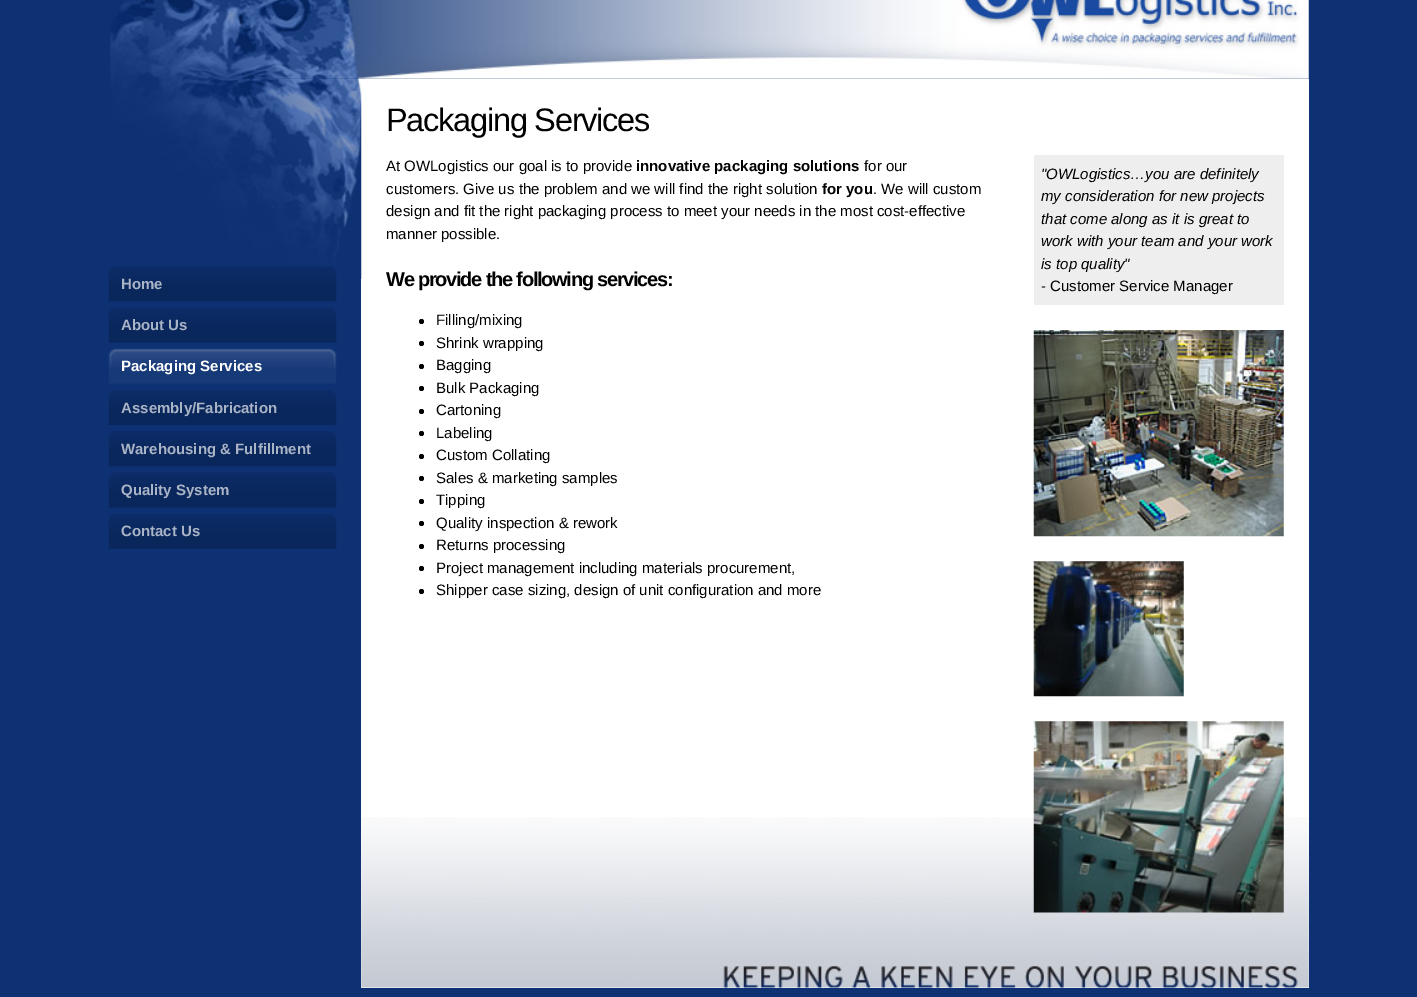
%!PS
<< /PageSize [1417 997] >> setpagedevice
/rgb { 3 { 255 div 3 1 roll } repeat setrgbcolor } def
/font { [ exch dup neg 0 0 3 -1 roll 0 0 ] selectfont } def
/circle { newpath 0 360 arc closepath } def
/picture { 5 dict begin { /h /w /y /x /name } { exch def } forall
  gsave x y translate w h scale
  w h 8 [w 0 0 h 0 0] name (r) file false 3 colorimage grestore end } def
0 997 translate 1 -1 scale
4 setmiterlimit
13 49 115 rgb
0 0 1417 997 rectfill
(img/1.rgb) 110 0 1199 79 picture
255 255 255 rgb
361 79 948 909 rectfill
(img/2.rgb) 110 78 252 201 picture
(img/3.rgb) 108 266 229 36 picture
(img/4.rgb) 108 307 229 36 picture
(img/5.rgb) 108 348 229 36 picture
(img/6.rgb) 108 390 229 35 picture
(img/7.rgb) 108 431 229 36 picture
(img/4.rgb) 108 472 229 36 picture
(img/8.rgb) 108 514 229 35 picture
(img/9.rgb) 361 817 948 171 picture
238 238 238 rgb
1034 155 250 150 rectfill
(img/10.rgb) 1033 330 251 207 picture
(img/11.rgb) 1033 561 151 136 picture
(img/12.rgb) 1033 721 251 192 picture
0 0 0 rgb
421.5 321.5 2.5 circle fill
421.5 343.5 2.5 circle fill
421.5 366.5 2.5 circle fill
421.5 388.5 2.5 circle fill
421.5 411.5 2.5 circle fill
421.5 433.5 2.5 circle fill
421.5 456.5 2.5 circle fill
421.5 478.5 2.5 circle fill
421.5 501.5 2.5 circle fill
421.5 523.5 2.5 circle fill
421.5 546.5 2.5 circle fill
421.5 568.5 2.5 circle fill
421.5 591.5 2.5 circle fill
/LiberationSans-Bold 15 font
169 180 199 rgb
121 289 moveto (Home) show
121 330 moveto (About Us) show
255 255 255 rgb
121 371 moveto (Packaging Services) show
169 180 199 rgb
[
  [(Assembly/Fabrication) 121 413]
  [(Warehousing & Fulfillment) 121 454]
  [(Quality System) 121 495]
  [(Contact Us) 121 536]
] { aload pop moveto show } forall
/LiberationSans-Regular 32.5 font
0 0 0 rgb
386 131 moveto -1.25 0 (Packaging Services) ashow
/LiberationSans-Regular 15 font
386 171 moveto (At OWLogistics our goal is to provide) show
/LiberationSans-Bold 15 font
636 171 moveto (innovative packaging solutions) show
/LiberationSans-Regular 15 font
864 171 moveto (for our) show
386 194 moveto (customers. Give us the problem and we will find the right solution) show
/LiberationSans-Bold 15 font
822 194 moveto (for you) show
/LiberationSans-Regular 15 font
[
  [(. We will custom) 873 194]
  [(design and fit the right packaging process to meet your needs in the most cost-effective) 386 216]
  [(manner possible.) 386 239]
] { aload pop moveto show } forall
/LiberationSans-Italic 15 font
[
  [("OWLogistics…you are definitely) 1041 179]
  [(my consideration for new projects) 1041 201]
  [(that come along as it is great to) 1041 224]
  [(work with your team and your work) 1041 246]
  [(is top quality") 1041 269]
] { aload pop moveto show } forall
/LiberationSans-Regular 15 font
1041 291 moveto (- Customer Service Manager) show
/LiberationSans-Bold 20 font
386 286 moveto -1.25 0 (We provide the following services:) ashow
/LiberationSans-Regular 15 font
[
  [(Filling/mixing) 436 325]
  [(Shrink wrapping) 436 348]
  [(Bagging) 436 370]
  [(Bulk Packaging) 436 393]
  [(Cartoning) 436 415]
  [(Labeling) 436 438]
  [(Custom Collating) 436 460]
  [(Sales & marketing samples) 436 483]
  [(Tipping) 436 505]
  [(Quality inspection & rework) 436 528]
  [(Returns processing) 436 550]
  [(Project management including materials procurement,) 436 573]
  [(Shipper case sizing, design of unit configuration and more) 436 595]
] { aload pop moveto show } forall
showpage
